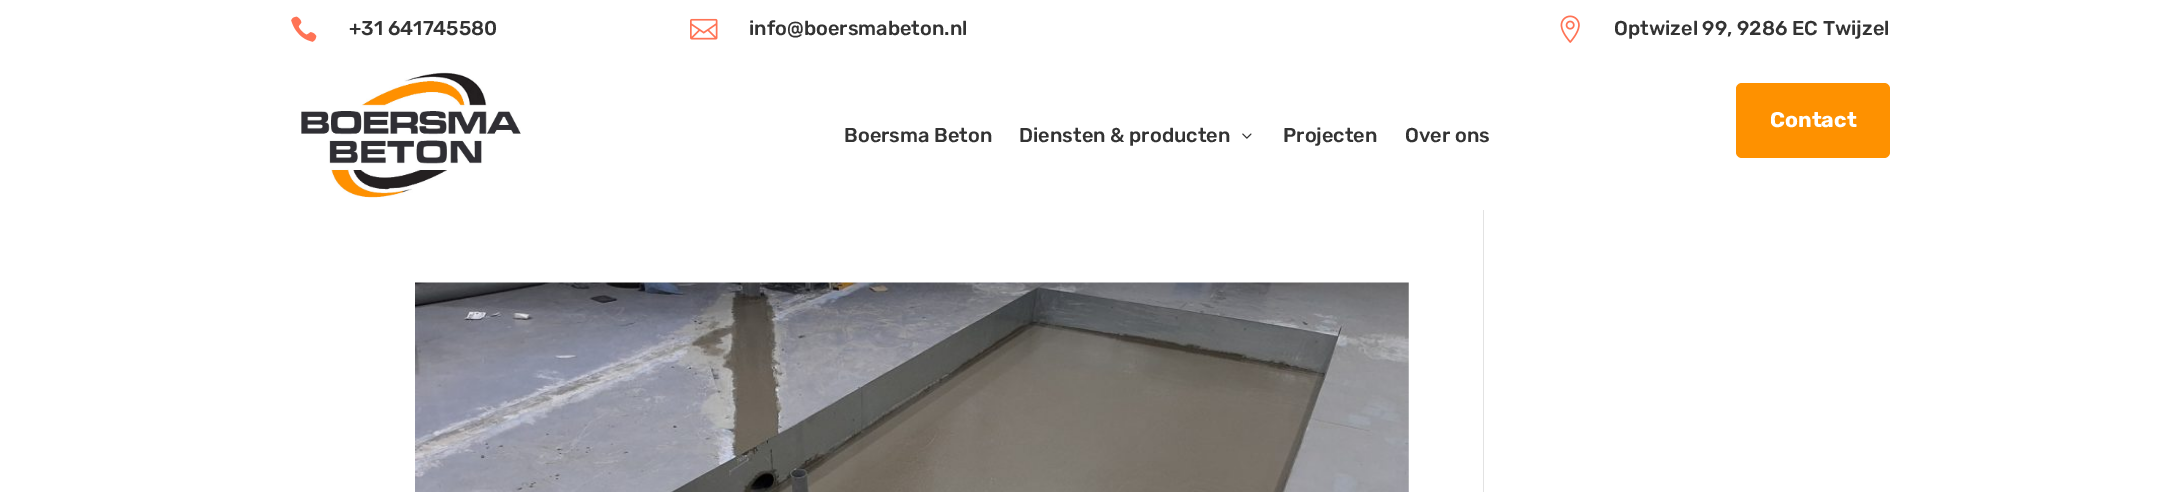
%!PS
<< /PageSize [2179 492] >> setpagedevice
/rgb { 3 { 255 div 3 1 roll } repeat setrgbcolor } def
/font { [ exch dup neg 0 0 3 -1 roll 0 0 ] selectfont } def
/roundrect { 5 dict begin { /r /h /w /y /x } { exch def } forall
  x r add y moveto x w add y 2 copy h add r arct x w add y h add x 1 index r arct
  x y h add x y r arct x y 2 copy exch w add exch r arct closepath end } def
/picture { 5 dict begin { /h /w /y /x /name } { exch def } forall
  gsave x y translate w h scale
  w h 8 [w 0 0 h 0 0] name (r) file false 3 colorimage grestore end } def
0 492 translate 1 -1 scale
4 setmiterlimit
255 255 255 rgb
0 0 2179 492 rectfill
(img/1.rgb) 291 16 26 26 picture
(img/2.rgb) 690 18 28 22 picture
(img/3.rgb) 1560 15 20 28 picture
254 145 0 rgb
1736 83 154 75 6 roundrect fill
(img/4.rgb) 301 72 220 126 picture
(img/5.rgb) 1242 133 10 6 picture
(img/6.rgb) 415 282 994 210 picture
226 226 226 rgb
1483 210 1 282 rectfill
/Rubik-Medium 20 font
51 51 51 rgb
[
  [(+31 641745580) 349 35]
  [(info@boersmabeton.nl) 749 35]
  [(Optwizel 99, 9286 EC Twijzel) 1614 35]
] { aload pop moveto show } forall
/Rubik-Bold 21.25 font
255 255 255 rgb
1770 127 moveto (Contact) show
/Rubik-Medium 20 font
51 51 51 rgb
[
  [(Boersma Beton) 844 142]
  [(Diensten & producten) 1019 142]
  [(Projecten) 1283 142]
  [(Over ons) 1405 142]
] { aload pop moveto show } forall
showpage
